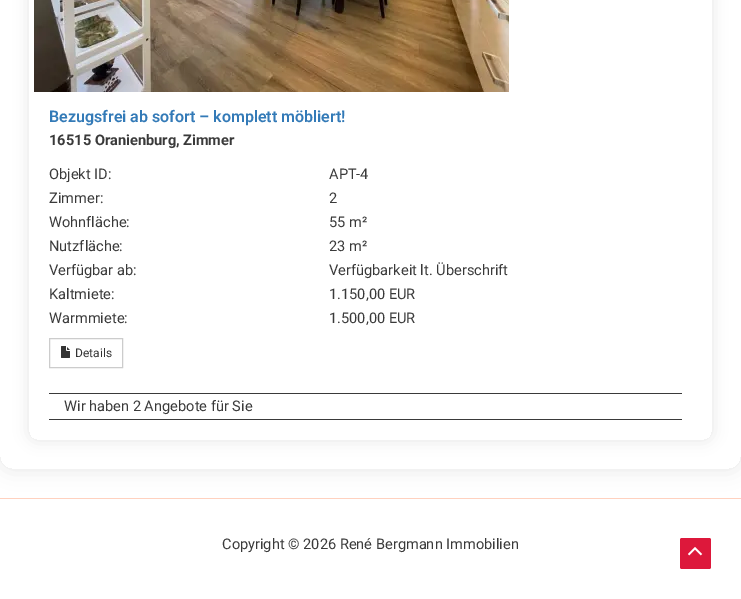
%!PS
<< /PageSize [741 599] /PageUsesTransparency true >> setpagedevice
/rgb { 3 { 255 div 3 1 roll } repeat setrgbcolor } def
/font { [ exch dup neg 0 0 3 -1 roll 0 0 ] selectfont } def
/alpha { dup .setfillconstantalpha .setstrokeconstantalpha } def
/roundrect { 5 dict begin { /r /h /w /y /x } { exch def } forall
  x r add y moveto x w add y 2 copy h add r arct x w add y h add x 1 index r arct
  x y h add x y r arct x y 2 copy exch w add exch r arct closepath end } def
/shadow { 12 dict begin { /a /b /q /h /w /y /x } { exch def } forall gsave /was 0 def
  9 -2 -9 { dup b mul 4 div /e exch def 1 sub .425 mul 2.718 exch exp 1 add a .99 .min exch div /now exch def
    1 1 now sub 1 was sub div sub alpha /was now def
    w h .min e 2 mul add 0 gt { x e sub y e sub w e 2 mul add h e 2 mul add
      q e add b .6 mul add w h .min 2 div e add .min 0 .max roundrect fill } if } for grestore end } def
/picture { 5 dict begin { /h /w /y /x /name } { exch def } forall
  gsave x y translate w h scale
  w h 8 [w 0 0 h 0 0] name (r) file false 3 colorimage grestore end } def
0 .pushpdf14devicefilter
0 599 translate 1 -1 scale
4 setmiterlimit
255 255 255 rgb
0 0 741 599 rectfill
gsave
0 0 moveto 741 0 lineto 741 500 lineto 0 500 lineto closepath 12 -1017 moveto 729 -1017 lineto 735.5 -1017 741 -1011.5 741 -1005 curveto 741 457 lineto 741 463.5 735.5 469 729 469 curveto 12 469 lineto 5.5 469 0 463.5 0 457 curveto 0 -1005 lineto 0 -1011.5 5.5 -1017 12 -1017 curveto closepath eoclip newpath
0 0 0 rgb
0 -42 741 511 12 10 0.1 shadow
grestore
gsave
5 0 moveto 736 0 lineto 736 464 lineto 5 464 lineto closepath 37 -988 moveto 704 -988 lineto 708.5 -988 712 -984.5 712 -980 curveto 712 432 lineto 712 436.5 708.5 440 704 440 curveto 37 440 lineto 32.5 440 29 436.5 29 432 curveto 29 -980 lineto 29 -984.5 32.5 -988 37 -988 curveto closepath eoclip newpath
0 0 0 rgb
29 -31 683 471 8 7.5 0.1 shadow
grestore
(img/1.rgb) 34 0 475 92 picture
204 204 204 rgb
49.5 338.5 73 29 rectstroke
(img/2.rgb) 61 346 9 12 picture
[
  [49 393 633 1 58 58 58]
  [49 419 633 1 58 58 58]
  [0 498 741 1 255 209 191]
] { aload pop rgb rectfill } forall
221 24 59 rgb
680 538 31 31 2 roundrect fill
(img/3.rgb) 688 547 15 9 picture
/Roboto-SemiBold 16 font
51 122 183 rgb
49 122 moveto (Bezugsfrei ab sofort – komplett möbliert!) show
/Roboto-Bold 14.6 font
58 58 58 rgb
49 145 moveto (16515 Oranienburg, Zimmer) show
/Roboto-Regular 14.6 font
[
  [(Objekt ID:) 49 179]
  [(APT-4) 329 179]
  [(Zimmer:) 49 203]
  [(2) 329 203]
  [(Wohnfläche:) 49 227]
  [(55 m²) 329 227]
  [(Nutzfläche:) 49 251]
  [(23 m²) 329 251]
  [(Verfügbar ab:) 49 275]
  [(Verfügbarkeit lt. Überschrift) 329 275]
  [(Kaltmiete:) 49 299]
  [(1.150,00 EUR) 329 299]
  [(Warmmiete:) 49 323]
  [(1.500,00 EUR) 329 323]
] { aload pop moveto show } forall
/Roboto-Regular 12 font
51 51 51 rgb
75 357 moveto (Details) show
/Roboto-Regular 14.6 font
58 58 58 rgb
64 411 moveto (Wir haben 2 Angebote für Sie) show
222 549 moveto (Copyright © 2026 René Bergmann Immobilien) show
.poppdf14devicefilter showpage
